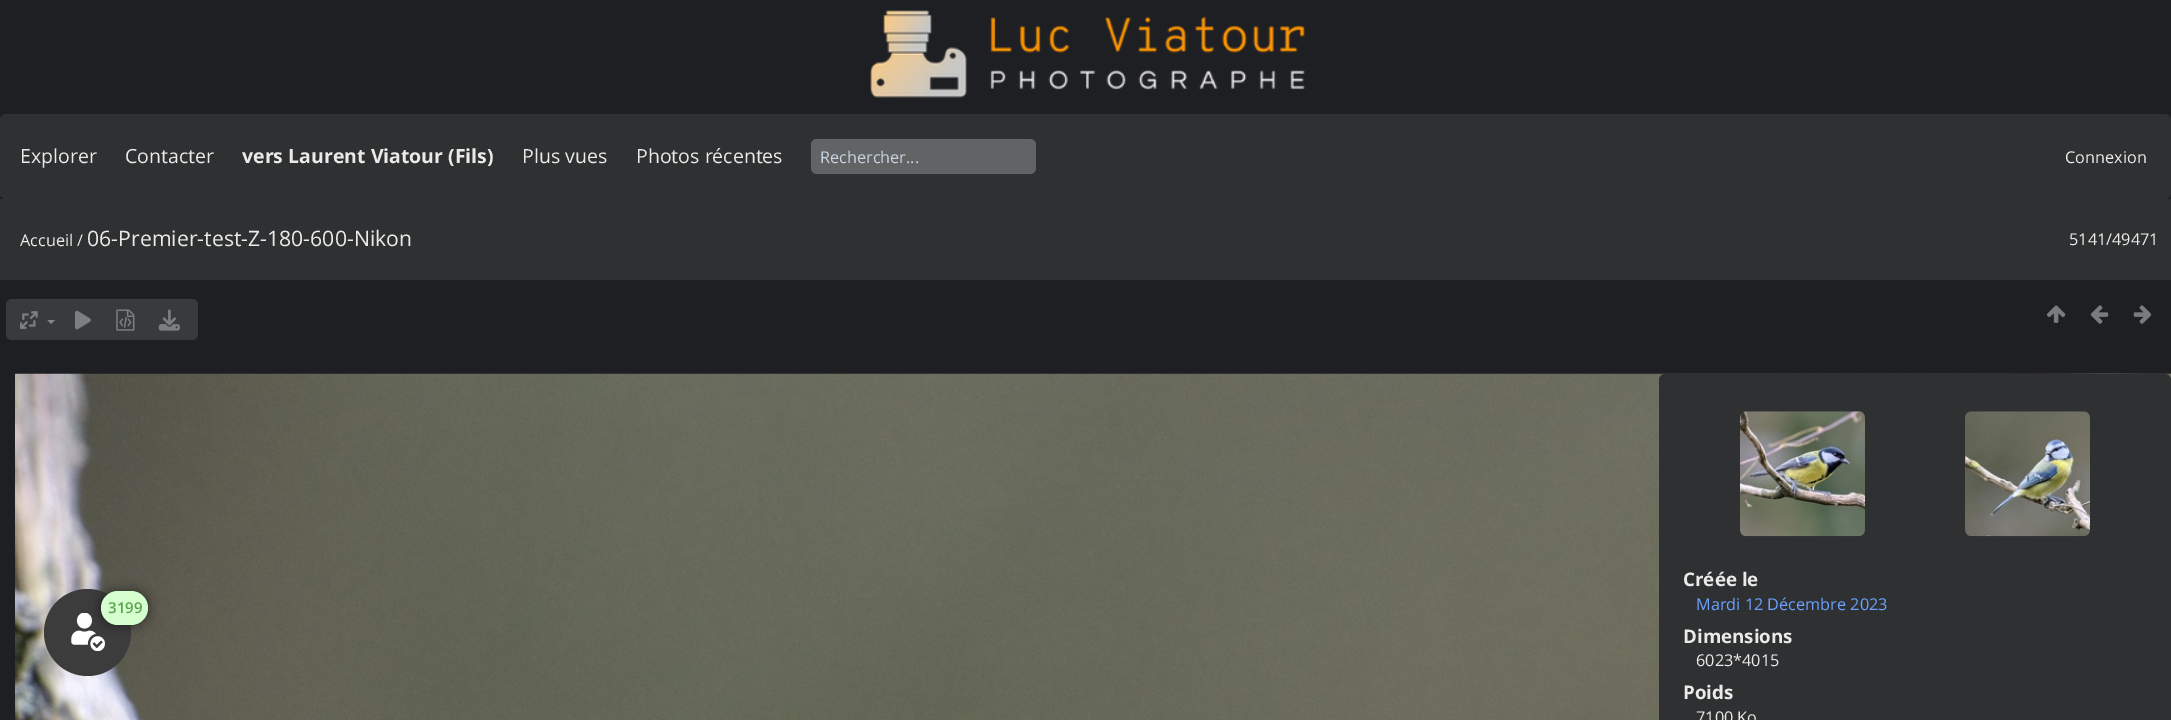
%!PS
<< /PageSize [2171 720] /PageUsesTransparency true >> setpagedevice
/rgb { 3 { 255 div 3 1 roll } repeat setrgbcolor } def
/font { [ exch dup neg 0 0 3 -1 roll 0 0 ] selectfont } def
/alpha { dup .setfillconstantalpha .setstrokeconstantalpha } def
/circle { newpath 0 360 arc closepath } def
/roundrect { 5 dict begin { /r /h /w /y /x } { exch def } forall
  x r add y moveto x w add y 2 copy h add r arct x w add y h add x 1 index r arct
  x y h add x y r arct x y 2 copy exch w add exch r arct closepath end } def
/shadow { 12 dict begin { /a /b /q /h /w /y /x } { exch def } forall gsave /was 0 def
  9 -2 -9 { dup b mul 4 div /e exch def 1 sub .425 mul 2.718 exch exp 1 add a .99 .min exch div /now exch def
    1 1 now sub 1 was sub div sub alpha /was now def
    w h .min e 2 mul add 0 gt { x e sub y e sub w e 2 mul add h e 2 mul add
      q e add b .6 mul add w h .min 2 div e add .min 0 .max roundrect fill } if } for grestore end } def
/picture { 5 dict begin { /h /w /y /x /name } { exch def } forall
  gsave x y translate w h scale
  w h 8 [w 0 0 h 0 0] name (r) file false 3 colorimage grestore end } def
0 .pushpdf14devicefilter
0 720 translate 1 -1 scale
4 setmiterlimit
30 31 35 rgb
0 0 2171 720 rectfill
(img/1.rgb) 870 10 436 88 picture
47 48 50 rgb
0 114 2171 85 6 roundrect fill
97 99 100 rgb
811 139 225 35 6 roundrect fill
47 48 50 rgb
0 199 2171 81 rectfill
57 58 61 rgb
6 299 192 41 6 roundrect fill
(img/2.rgb) 20 311 18 18 picture
132 133 136 rgb
47.5 320 moveto 55 320 lineto 51 324 lineto closepath fill
(img/3.rgb) 75 310 16 20 picture
(img/4.rgb) 116 309 19 22 picture
(img/5.rgb) 158 309 22 22 picture
(img/6.rgb) 2046 305 20 18 picture
(img/7.rgb) 2090 305 19 19 picture
(img/8.rgb) 2133 305 19 19 picture
(img/9.rgb) 15 373 2156 347 picture
47 48 50 rgb
1659 374 512 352 6 roundrect fill
(img/10.rgb) 1740 411 125 126 picture
(img/11.rgb) 1965 411 125 126 picture
60 60 60 rgb
87.5 632.5 43.5 circle fill
(img/12.rgb) 71 613 34 38 picture
0 0 0 rgb
101 591 47 34 17 6 0.5 shadow
214 255 207 rgb
101 591 47 34 17 roundrect fill
/OpenSans-Regular 19.5 font
234 234 233 rgb
20 163 moveto (Explorer) show
125 163 moveto (Contacter) show
/OpenSans-Bold 19.5 font
242 163 moveto (vers Laurent Viatour \(Fils\)) show
/OpenSans-Regular 19.5 font
522 163 moveto (Plus vues) show
636 163 moveto (Photos récentes) show
/OpenSans-Regular 16.25 font
199 211 225 rgb
820 163 moveto (Rechercher...) show
234 234 233 rgb
2065 163 moveto (Connexion) show
20 246 moveto (Accueil /) show
/OpenSans-Regular 21.25 font
87 246 moveto (06-Premier-test-Z-180-600-Nikon) show
/OpenSans-Regular 16.25 font
2069 245 moveto (5141/49471) show
/OpenSans-Bold 18.75 font
1683 586 moveto (Créée le) show
/OpenSans-Regular 16.25 font
107 161 255 rgb
1696 610 moveto (Mardi 12 Décembre 2023) show
/OpenSans-Bold 18.75 font
234 234 233 rgb
1683 643 moveto (Dimensions) show
/OpenSans-Regular 16.25 font
1696 666 moveto (6023*4015) show
/OpenSans-Bold 18.75 font
1683 699 moveto (Poids) show
/OpenSans-Regular 16.25 font
1696 723 moveto (7100 Ko) show
/OpenSans-SemiBold 15 font
91 162 80 rgb
108 613 moveto (3199) show
.poppdf14devicefilter showpage
